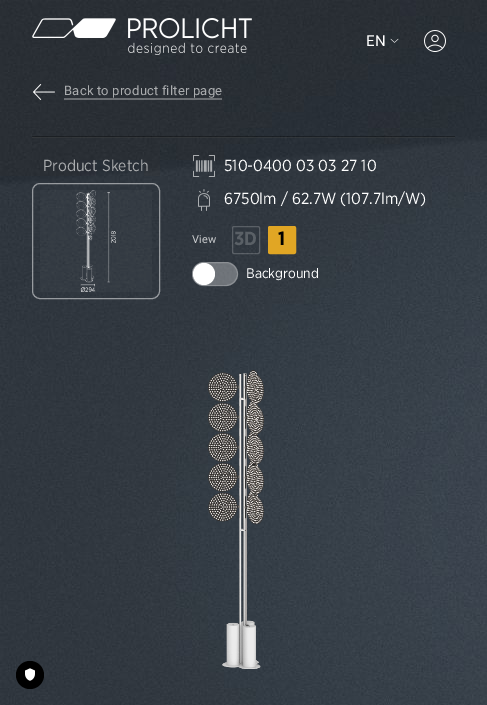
%!PS
<< /PageSize [487 705] /PageUsesTransparency true >> setpagedevice
/rgb { 3 { 255 div 3 1 roll } repeat setrgbcolor } def
/font { [ exch dup neg 0 0 3 -1 roll 0 0 ] selectfont } def
/alpha { dup .setfillconstantalpha .setstrokeconstantalpha } def
/circle { newpath 0 360 arc closepath } def
/roundrect { 5 dict begin { /r /h /w /y /x } { exch def } forall
  x r add y moveto x w add y 2 copy h add r arct x w add y h add x 1 index r arct
  x y h add x y r arct x y 2 copy exch w add exch r arct closepath end } def
/picture { 5 dict begin { /h /w /y /x /name } { exch def } forall
  gsave x y translate w h scale
  w h 8 [w 0 0 h 0 0] name (r) file false 3 colorimage grestore end } def
0 .pushpdf14devicefilter
0 705 translate 1 -1 scale
4 setmiterlimit
255 255 255 rgb
0 0 487 705 rectfill
(img/1.rgb) 0 0 487 705 picture
(img/2.rgb) 32 18 220 37 picture
(img/3.rgb) 390 38 9 5 picture
(img/4.rgb) 424 30 22 22 picture
(img/5.rgb) 33 84 22 16 picture
0.3 alpha
[
  [64 98 158 2 255 255 255]
] { aload pop rgb rectfill } forall
0.33 alpha
[
  [32 136 423 2 0 0 0]
] { aload pop rgb rectfill } forall
0.1 alpha
[
  [32 137 423 1 255 255 255]
] { aload pop rgb rectfill } forall
0.5 alpha
32.5 183.5 127 115 7.5 roundrect stroke
1 alpha
(img/6.rgb) 40 190 112 102 picture
(img/7.rgb) 193 155 22 22 picture
(img/8.rgb) 198 189 12 22 picture
0.2 alpha
232.5 226.5 27 27 1.5 roundrect stroke
1 alpha
225 166 36 rgb
268.5 226.5 27 27 1.5 roundrect gsave fill grestore
stroke
0.3 alpha
255 255 255 rgb
192 262 46 24 12 roundrect fill
0.2 alpha
192.5 262.5 45 23 11.5 roundrect stroke
1 alpha
204 274 11 circle fill
(img/9.rgb) 208 370 56 299 picture
0 0 0 rgb
30 675 14 circle fill
(img/10.rgb) 25 668 10 13 picture
/Roboto-Regular 15 font
255 255 255 rgb
366 46 moveto 0.2 0 (EN) ashow
/Roboto-Regular 13 font
170 172 174 rgb
64 95 moveto 0.2 0 (Back to product filter page) ashow
/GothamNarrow-Regular 16 font
43 171 moveto (Product Sketch) show
255 255 255 rgb
224 171 moveto (510-0400 03 03 27 10) show
224 204 moveto (6750lm / 62.7W \(107.7lm/W\)) show
/Roboto-Regular 11 font
203 205 207 rgb
192 243 moveto (View) show
/GothamNarrow-Bold 19 font
90 96 102 rgb
234 245 moveto (3D) show
0 0 0 rgb
278 245 moveto (1) show
/GothamNarrow-Regular 14 font
255 255 255 rgb
246 278 moveto (Background) show
.poppdf14devicefilter showpage
